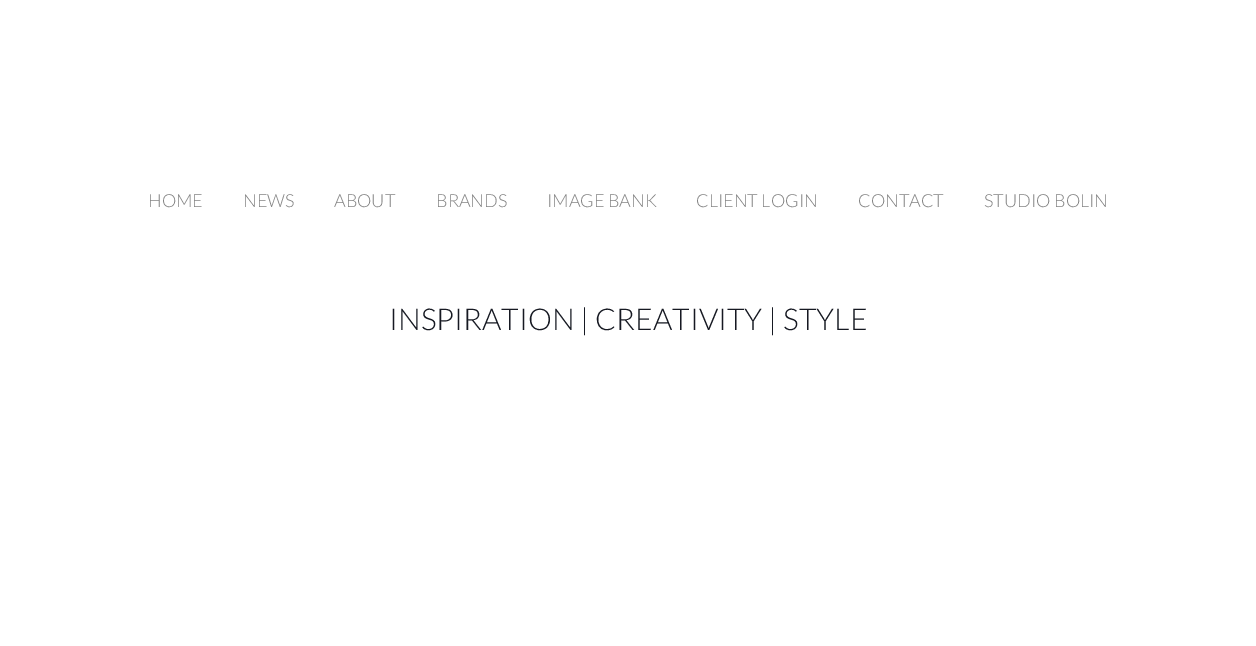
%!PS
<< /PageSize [1256 646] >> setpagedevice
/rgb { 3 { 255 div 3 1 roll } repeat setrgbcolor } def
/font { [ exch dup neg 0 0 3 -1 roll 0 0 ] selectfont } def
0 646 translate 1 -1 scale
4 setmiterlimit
255 255 255 rgb
0 0 1256 646 rectfill
/Lato-Light 18 font
130 130 130 rgb
[
  [(HOME) 148 207]
  [(NEWS) 243 207]
  [(ABOUT) 334 207]
  [(BRANDS) 436 207]
  [(IMAGE BANK) 547 207]
  [(CLIENT LOGIN) 696 207]
  [(CONTACT) 858 207]
  [(STUDIO BOLIN) 984 207]
] { aload pop moveto show } forall
/Lato-Light 30 font
22 25 34 rgb
389 330 moveto (INSPIRATION | CREATIVITY | STYLE) show
showpage
